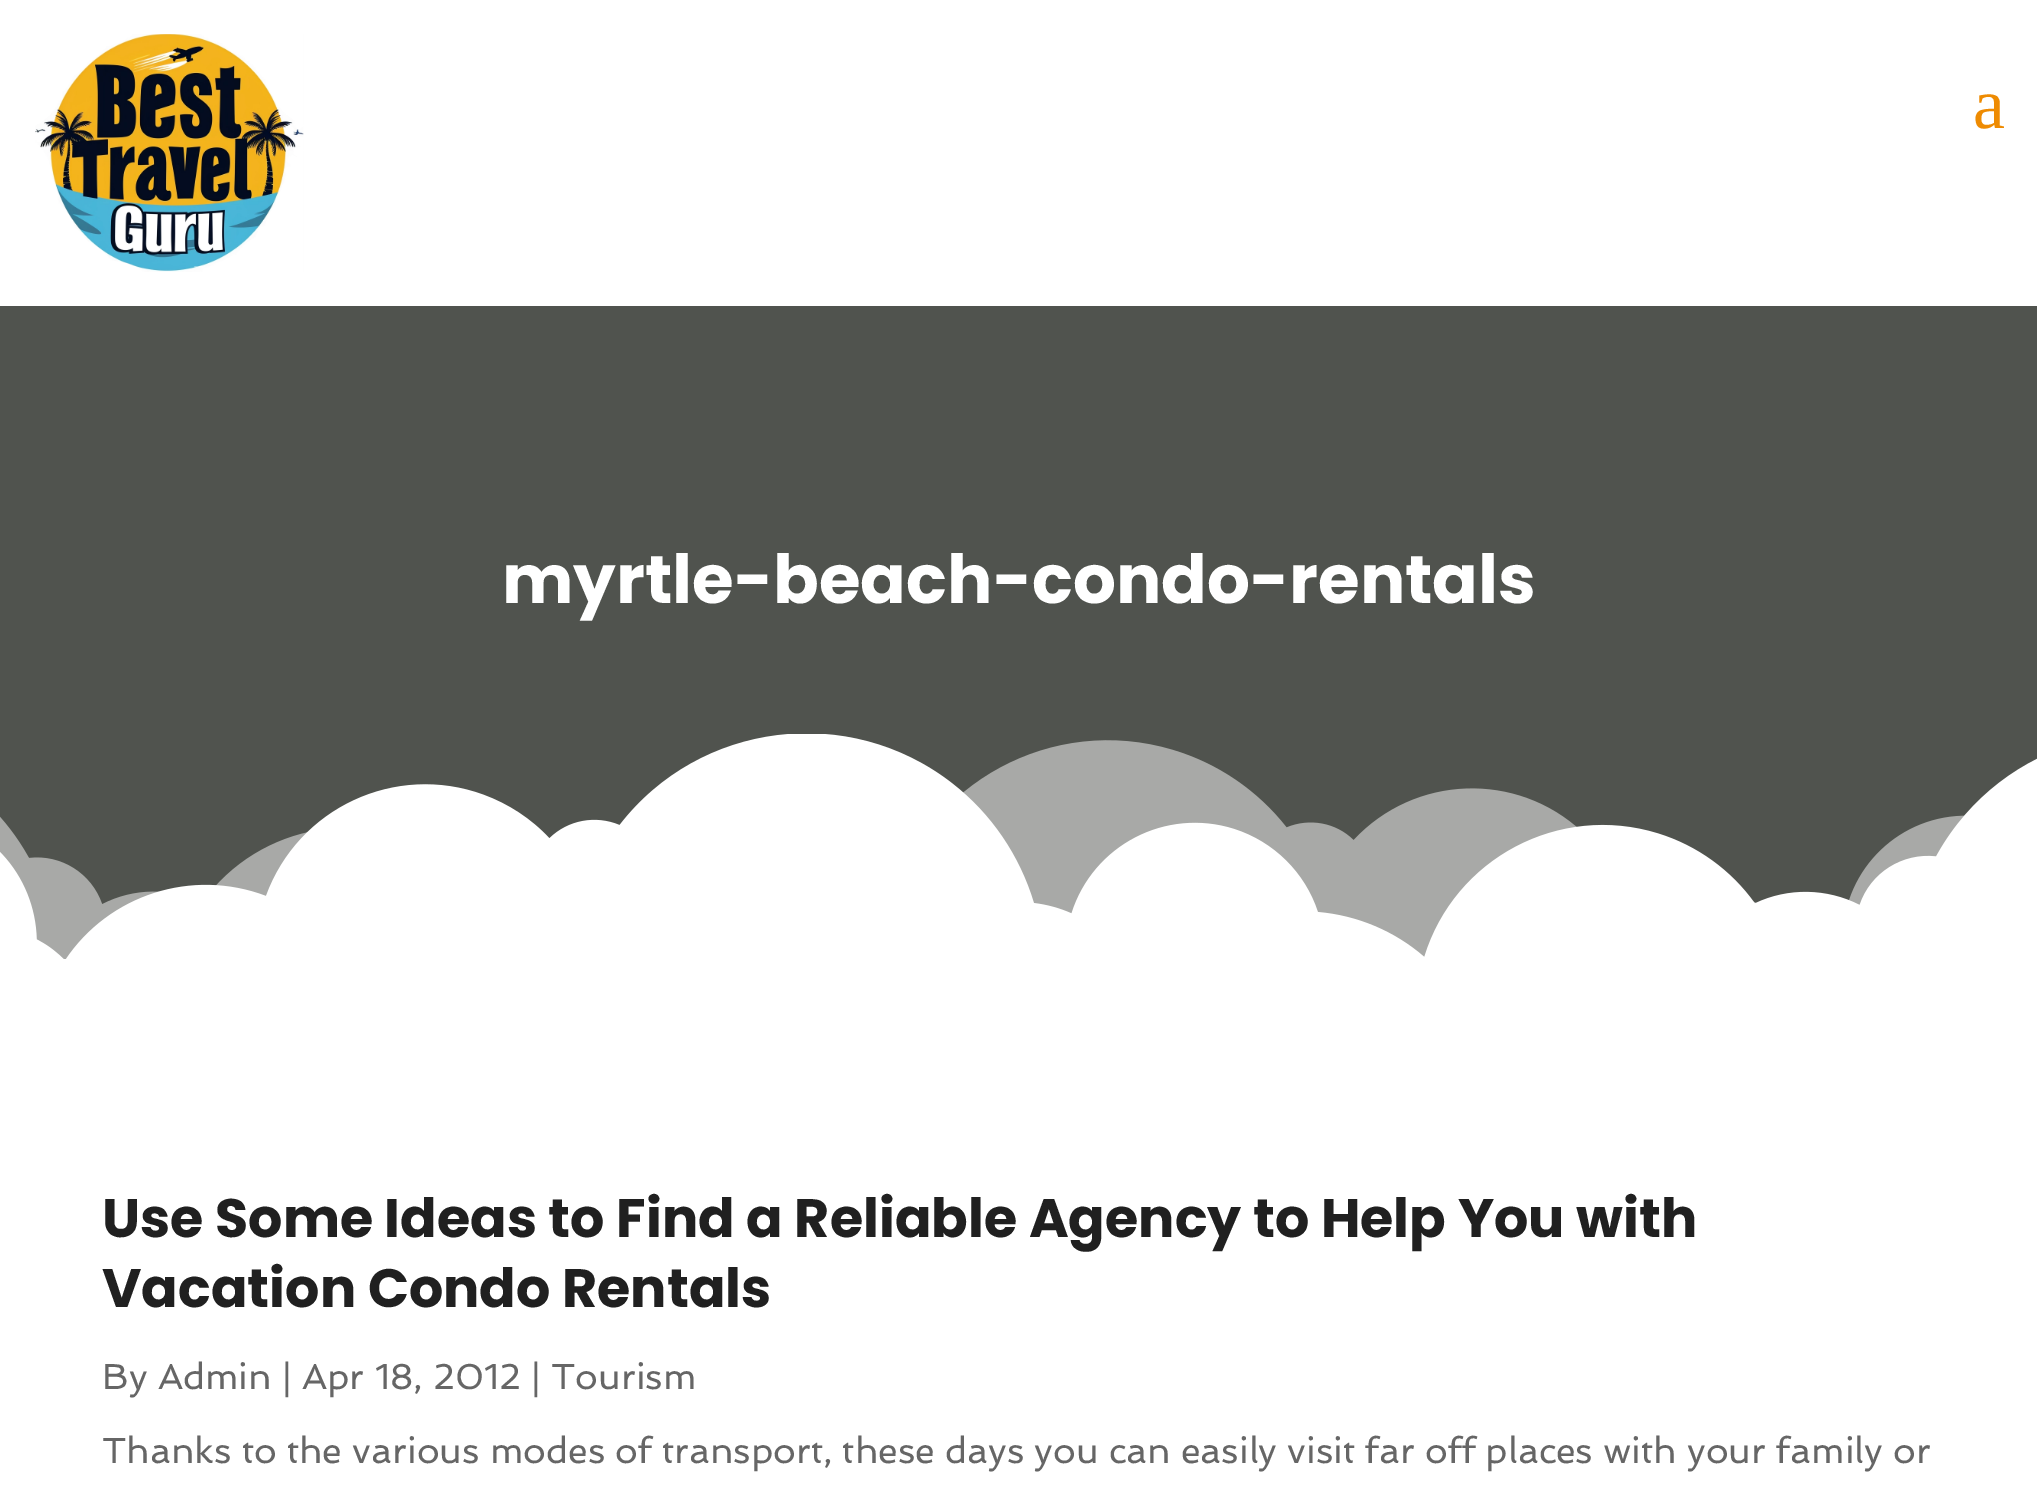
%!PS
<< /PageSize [2037 1505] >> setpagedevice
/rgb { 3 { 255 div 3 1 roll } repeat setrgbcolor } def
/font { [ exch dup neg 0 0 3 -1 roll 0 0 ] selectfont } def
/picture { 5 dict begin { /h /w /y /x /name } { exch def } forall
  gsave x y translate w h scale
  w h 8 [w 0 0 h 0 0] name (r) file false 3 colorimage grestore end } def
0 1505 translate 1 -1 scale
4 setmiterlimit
255 255 255 rgb
0 0 2037 1505 rectfill
(img/1.rgb) 35 34 269 238 picture
80 83 78 rgb
0 306 2037 653 rectfill
(img/2.rgb) 0 734 2037 225 picture
/LiberationSerif-Regular 72 font
238 139 2 rgb
1973 128 moveto (a) show
/Poppins-Bold 67.5 font
255 255 255 rgb
502 603 moveto (myrtle-beach-condo-rentals) show
/Poppins-Bold 54 font
32 32 32 rgb
102 1237 moveto (Use Some Ideas to Find a Reliable Agency to Help You with) show
102 1307 moveto (Vacation Condo Rentals) show
/Spinnaker-Regular 36 font
102 102 102 rgb
102 1389 moveto (By Admin | Apr 18, 2012 | Tourism) show
102 1463 moveto (Thanks to the various modes of transport, these days you can easily visit far off places with your family or) show
showpage
